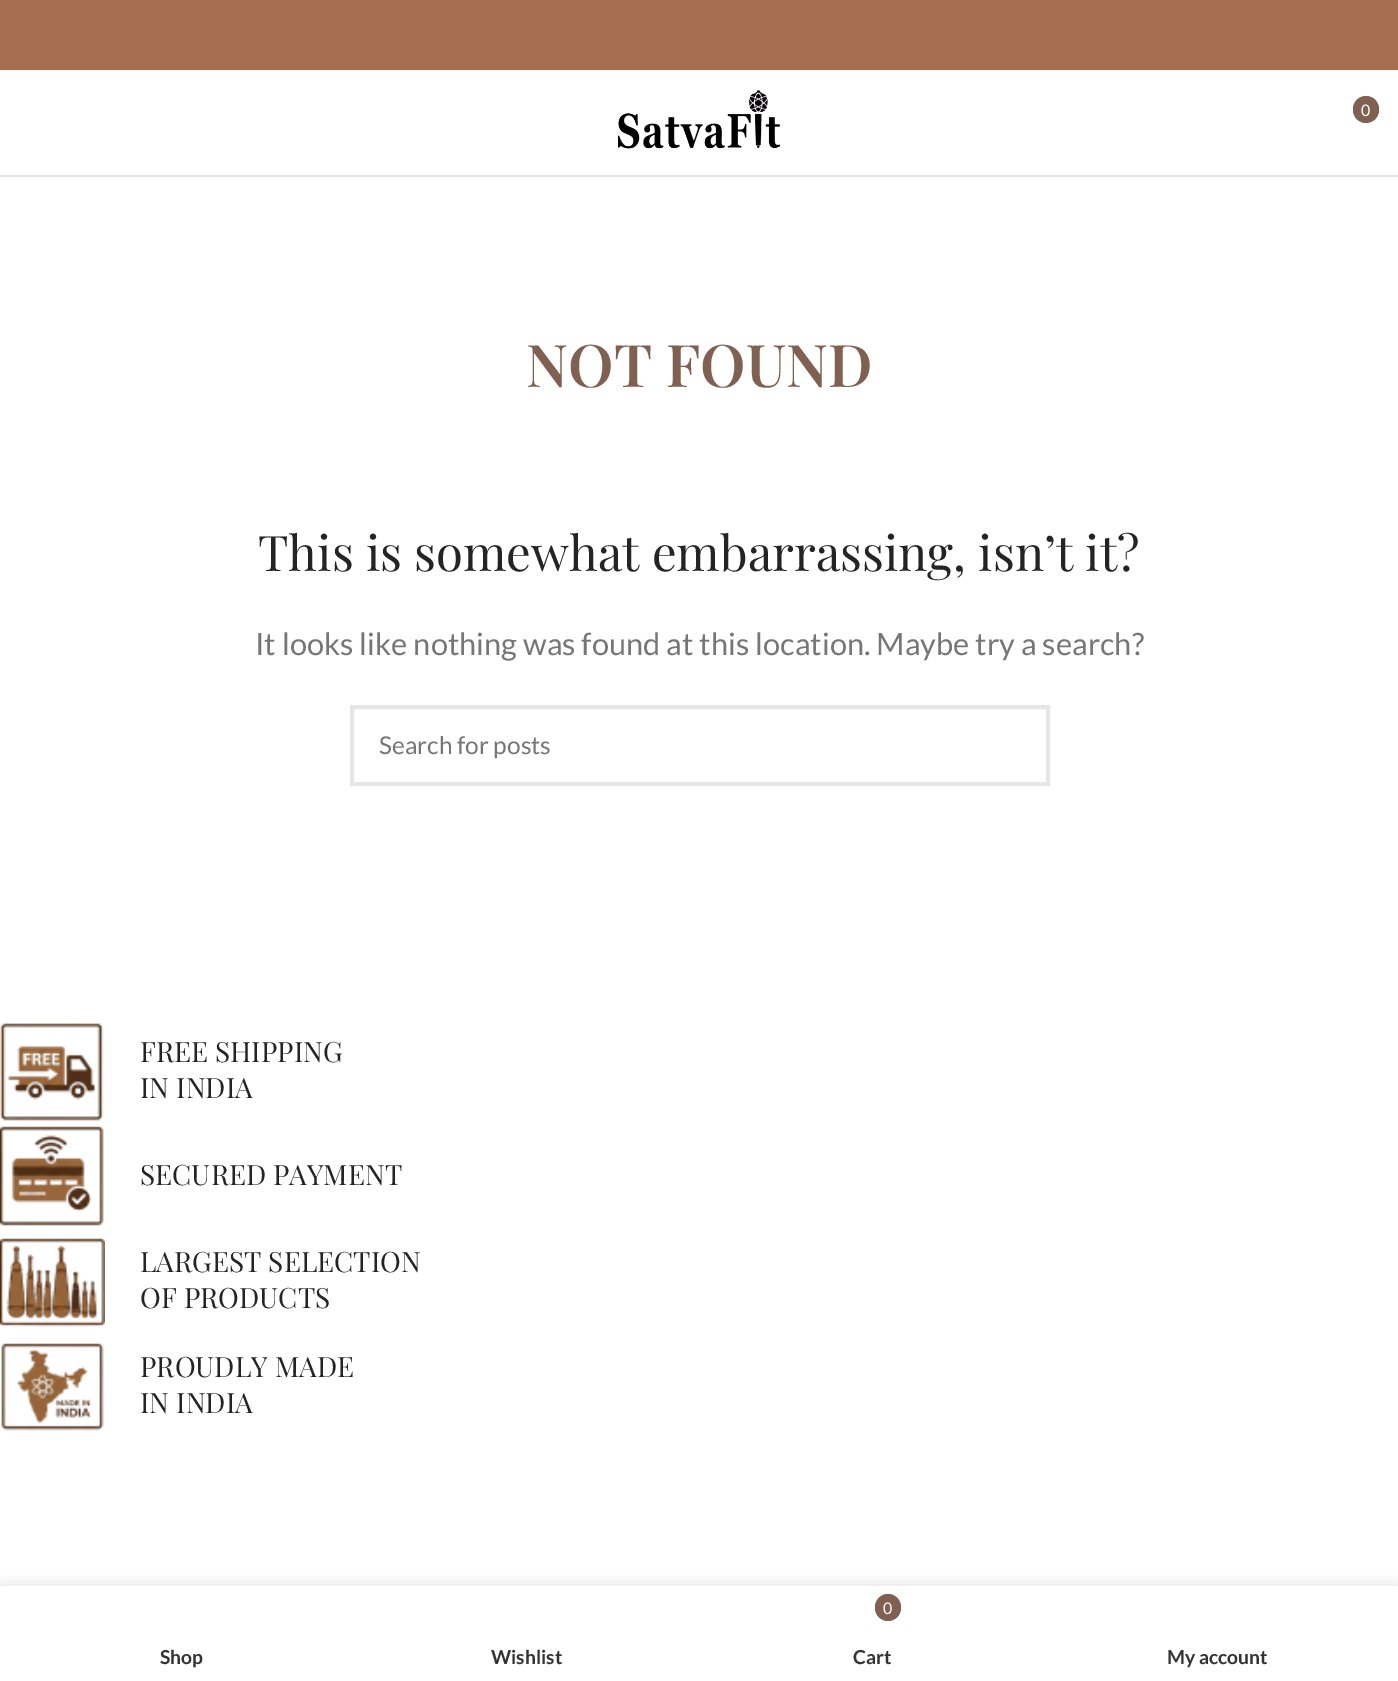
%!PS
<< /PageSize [1398 1681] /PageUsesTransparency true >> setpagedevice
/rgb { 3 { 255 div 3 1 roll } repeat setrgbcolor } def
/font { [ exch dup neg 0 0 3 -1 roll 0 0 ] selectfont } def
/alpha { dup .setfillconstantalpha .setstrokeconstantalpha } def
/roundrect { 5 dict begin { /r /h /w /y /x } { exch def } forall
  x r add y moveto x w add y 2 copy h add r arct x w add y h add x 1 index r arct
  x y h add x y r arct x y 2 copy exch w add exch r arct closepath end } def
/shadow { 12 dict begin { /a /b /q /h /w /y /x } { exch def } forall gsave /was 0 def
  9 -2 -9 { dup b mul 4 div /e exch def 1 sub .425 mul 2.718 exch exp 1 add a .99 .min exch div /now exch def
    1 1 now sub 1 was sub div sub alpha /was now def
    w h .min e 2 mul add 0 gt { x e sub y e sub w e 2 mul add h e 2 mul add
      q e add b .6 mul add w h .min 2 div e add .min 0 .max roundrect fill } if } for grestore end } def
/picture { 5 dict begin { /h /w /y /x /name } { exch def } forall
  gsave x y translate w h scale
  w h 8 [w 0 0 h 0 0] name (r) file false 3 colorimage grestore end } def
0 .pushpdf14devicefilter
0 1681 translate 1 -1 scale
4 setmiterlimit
255 255 255 rgb
0 0 1398 1681 rectfill
167 109 80 rgb
0 0 1398 70 rectfill
230 230 230 rgb
0 175 1398 2 rectfill
(img/1.rgb) 617 90 164 59 picture
127 96 81 rgb
1353 96 26 27 13 roundrect fill
230 230 230 rgb
4 setlinewidth
352 707 696 77 rectstroke
(img/2.rgb) 0 1023 104 100 picture
(img/3.rgb) 0 1126 104 100 picture
(img/4.rgb) 0 1238 105 89 picture
(img/5.rgb) 1 1342 103 89 picture
0 0 0 rgb
0 1586 1398 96 0 8 0.12 shadow
255 255 255 rgb
0 1586 1398 95 rectfill
127 96 81 rgb
875 1594 26 27 13 roundrect fill
/Lato-Regular 16 font
255 255 255 rgb
1361 116 moveto (0) show
/PlayfairDisplay-SemiBold 58.75 font
127 96 81 rgb
526 387 moveto (NOT FOUND) show
/PlayfairDisplay-Regular 49 font
36 36 36 rgb
258 571 moveto (This is somewhat embarrassing, isn’t it?) show
/Lato-Regular 30.8 font
118 118 118 rgb
255 655 moveto (It looks like nothing was found at this location. Maybe try a search?) show
/Lato-Regular 24.5 font
379 754 moveto (Search for posts) show
/PlayfairDisplay-Regular 28 font
36 36 36 rgb
[
  [(FREE SHIPPING) 140 1062]
  [(IN INDIA) 140 1098]
  [(SECURED PAYMENT) 140 1185]
  [(LARGEST SELECTION) 140 1272]
  [(OF PRODUCTS) 140 1308]
  [(PROUDLY MADE) 140 1377]
  [(IN INDIA) 140 1413]
] { aload pop moveto show } forall
/Lato-Bold 19.25 font
51 51 51 rgb
160 1664 moveto (Shop) show
491 1664 moveto (Wishlist) show
/Lato-Regular 16 font
255 255 255 rgb
883 1614 moveto (0) show
/Lato-Bold 19.25 font
51 51 51 rgb
853 1664 moveto (Cart) show
1167 1664 moveto (My account) show
.poppdf14devicefilter showpage
